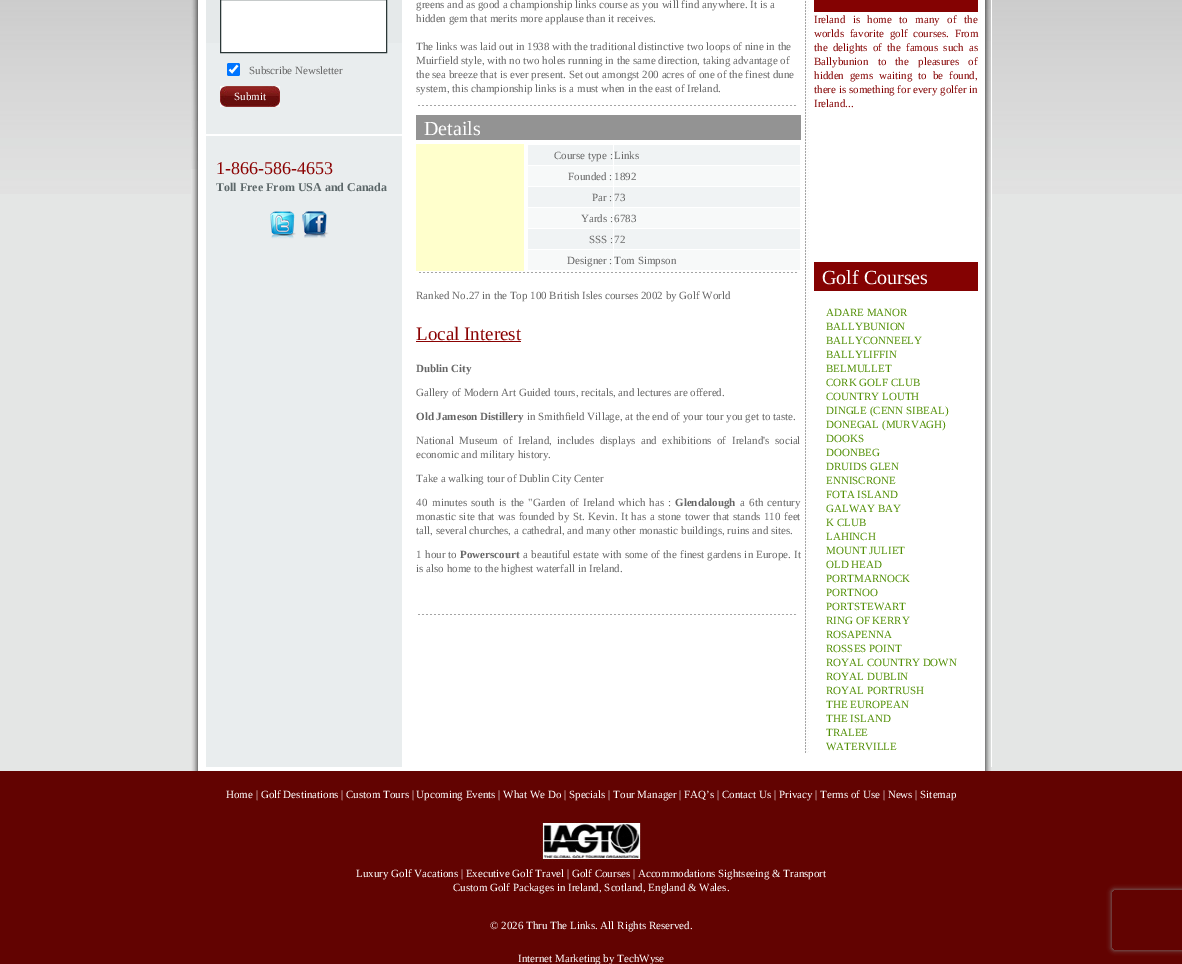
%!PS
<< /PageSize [1182 964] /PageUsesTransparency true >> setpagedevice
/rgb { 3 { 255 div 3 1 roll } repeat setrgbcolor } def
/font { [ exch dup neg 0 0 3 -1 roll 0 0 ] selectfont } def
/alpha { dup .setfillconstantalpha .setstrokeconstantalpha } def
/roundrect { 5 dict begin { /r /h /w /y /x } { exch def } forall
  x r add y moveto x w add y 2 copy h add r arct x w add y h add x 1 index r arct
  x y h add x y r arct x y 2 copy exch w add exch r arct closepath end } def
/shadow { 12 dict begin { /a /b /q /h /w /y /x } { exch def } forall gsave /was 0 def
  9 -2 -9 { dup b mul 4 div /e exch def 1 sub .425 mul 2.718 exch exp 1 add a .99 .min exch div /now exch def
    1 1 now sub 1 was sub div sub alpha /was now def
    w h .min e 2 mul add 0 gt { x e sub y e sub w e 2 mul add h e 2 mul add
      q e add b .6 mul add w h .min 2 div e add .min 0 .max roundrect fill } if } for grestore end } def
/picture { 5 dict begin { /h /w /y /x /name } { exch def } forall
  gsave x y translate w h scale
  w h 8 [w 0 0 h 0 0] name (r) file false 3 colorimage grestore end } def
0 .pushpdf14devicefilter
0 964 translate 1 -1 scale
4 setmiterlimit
228 230 229 rgb
0 0 1182 964 rectfill
(img/1.rgb) 0 0 1182 194 picture
(img/2.rgb) 191 0 15 767 picture
(img/3.rgb) 191 0 7 169 picture
233 237 238 rgb
206 43 196 724 rectfill
229 233 234 rgb
206 0 196 43 rectfill
255 255 255 rgb
220.5 -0.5 moveto 386.5 -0.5 lineto 386.5 52.5 lineto 220.5 52.5 lineto closepath gsave fill grestore
43 55 55 rgb
stroke
0 117 255 rgb
227 63 13 13 2 roundrect fill
255 255 255 rgb
2.1 setlinewidth
229.5 69.5 moveto 232 72 lineto 237.5 65.5 lineto stroke
(img/4.rgb) 220 86 60 21 picture
206 134 196 2 rectfill
(img/5.rgb) 270 211 26 28 picture
(img/6.rgb) 302 211 27 27 picture
402 0 576 767 rectfill
(img/7.rgb) 418 105 379 1 picture
[
  [416 115 385 25 147 147 147]
  [416 144 108 127 255 255 204]
  [528 145 85 20 240 243 244]
  [614 145 186 20 240 243 244]
  [528 166 85 20 247 249 249]
  [614 166 186 20 247 249 249]
  [528 187 85 20 240 243 244]
  [614 187 186 20 240 243 244]
  [528 208 85 20 247 249 249]
  [614 208 186 20 247 249 249]
  [528 229 85 20 240 243 244]
  [614 229 186 20 240 243 244]
  [528 250 85 20 247 249 249]
  [614 250 186 20 247 249 249]
] { aload pop rgb rectfill } forall
(img/7.rgb) 419 272 379 1 picture
139 3 3 rgb
416 341 105 1 rectfill
(img/7.rgb) 418 614 379 1 picture
(img/8.rgb) 805 0 4 753 picture
132 2 2 rgb
814 0 164 12 rectfill
814 262 164 29 rectfill
(img/9.rgb) 978 0 14 767 picture
(img/10.rgb) 985 0 6 217 picture
(img/11.rgb) 191 767 15 4 picture
(img/12.rgb) 206 767 785 4 picture
98 3 1 rgb
0 771 1182 193 rectfill
(img/13.rgb) 540 821 101 40 picture
gsave
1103 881 moveto 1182 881 lineto 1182 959 lineto 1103 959 lineto closepath 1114 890 moveto 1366 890 lineto 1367 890 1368 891 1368 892 curveto 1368 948 lineto 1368 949 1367 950 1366 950 curveto 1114 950 lineto 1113 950 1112 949 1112 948 curveto 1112 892 lineto 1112 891 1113 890 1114 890 curveto closepath eoclip newpath
128 128 128 rgb
1112 890 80 60 2 2.5 1 shadow
grestore
/LiberationSerif-Regular 11 font
102 102 102 rgb
249 74 moveto (Subscribe Newsletter) show
255 255 255 rgb
234 100 moveto (Submit) show
/LiberationSerif-Regular 18 font
139 3 3 rgb
216 174 moveto (1-866-586-4653) show
/LiberationSerif-Bold 12 font
92 103 105 rgb
216 191 moveto (Toll Free From USA and Canada) show
/LiberationSerif-Regular 11 font
102 102 102 rgb
[
  [(greens and as good a championship links course as you will find anywhere. It is a) 416 8]
  [(hidden gem that merits more applause than it receives.) 416 22]
  [(The links was laid out in 1938 with the traditional distinctive two loops of nine in the) 416 50]
  [(Muirfield style, with no two holes running in the same direction, taking advantage of) 416 64]
  [(the sea breeze that is ever present. Set out amongst 200 acres of one of the finest dune) 416 78]
  [(system, this championship links is a must when in the east of Ireland.) 416 92]
] { aload pop moveto show } forall
/LiberationSerif-Regular 20 font
255 255 255 rgb
424 135 moveto (Details) show
/LiberationSerif-Regular 11 font
102 102 102 rgb
[
  [(Course type :) 554 159]
  [(Links) 614 159]
  [(Founded :) 568 180]
  [(1892) 614 180]
  [(Par :) 592 201]
  [(73) 614 201]
  [(Yards :) 581 222]
  [(6783) 614 222]
  [(SSS :) 589 243]
  [(72) 614 243]
  [(Designer :) 567 264]
  [(Tom Simpson) 614 264]
  [(Ranked No.27 in the Top 100 British Isles courses 2002 by Golf World) 416 299]
] { aload pop moveto show } forall
/LiberationSerif-Regular 19 font
139 3 3 rgb
416 340 moveto (Local Interest) show
/LiberationSerif-Bold 11 font
102 102 102 rgb
416 372 moveto (Dublin City) show
/LiberationSerif-Regular 11 font
416 396 moveto (Gallery of Modern Art Guided tours, recitals, and lectures are offered.) show
/LiberationSerif-Bold 11 font
416 420 moveto (Old Jameson Distillery) show
/LiberationSerif-Regular 11 font
527 420 moveto (in Smithfield Village, at the end of your tour you get to taste.) show
416 444 moveto 2.75 0 32 (National Museum of Ireland, includes displays and exhibitions of) widthshow
732 444 moveto 2.75 0 32 (Ireland's social) widthshow
[
  [(economic and military history.) 416 458]
  [(Take a walking tour of Dublin City Center) 416 482]
  [(40) 416 506]
] { aload pop moveto show } forall
432 506 moveto 1.5 0 32 (minutes south is the "Garden of Ireland which has :) widthshow
/LiberationSerif-Bold 11 font
675 506 moveto (Glendalough) show
/LiberationSerif-Regular 11 font
740 506 moveto 1.5 0 32 (a 6th century) widthshow
416 520 moveto 0.75 0 32 (monastic site that was founded by St. Kevin. It has a stone tower) widthshow
713 520 moveto 0.75 0 32 (that stands 110 feet) widthshow
416 534 moveto (tall, several churches, a cathedral, and many other monastic buildings, ruins and sites.) show
416 558 moveto (1) show
425 558 moveto 0.5 0 32 (hour to) widthshow
/LiberationSerif-Bold 11 font
460 558 moveto (Powerscourt) show
/LiberationSerif-Regular 11 font
523 558 moveto 0.5 0 32 (a beautiful estate with some of the finest) widthshow
707 558 moveto 0.5 0 32 (gardens in Europe. It) widthshow
416 572 moveto (is also home to the highest waterfall in Ireland.) show
132 2 2 rgb
814 23 moveto 4.75 0 32 (Ireland is home to many of the) widthshow
814 37 moveto 3 0 32 (worlds favorite golf courses. From) widthshow
814 51 moveto 2.5 0 32 (the delights of the famous such as) widthshow
814 65 moveto 6.5 0 32 (Ballybunion to the pleasures of) widthshow
814 79 moveto 3.25 0 32 (hidden gems waiting to be found,) widthshow
814 93 moveto (there is something for every golfer in) show
814 107 moveto (Ireland...) show
/LiberationSerif-Regular 20 font
255 255 255 rgb
822 284 moveto (Golf Courses) show
/LiberationSerif-Regular 11 font
80 142 3 rgb
[
  [(ADARE MANOR) 826 316]
  [(BALLYBUNION) 826 330]
  [(BALLYCONNEELY) 826 344]
  [(BALLYLIFFIN) 826 358]
  [(BELMULLET) 826 372]
  [(CORK GOLF CLUB) 826 386]
  [(COUNTRY LOUTH) 826 400]
  [(DINGLE \(CENN SIBEAL\)) 826 414]
  [(DONEGAL \(MURVAGH\)) 826 428]
  [(DOOKS) 826 442]
  [(DOONBEG) 826 456]
  [(DRUIDS GLEN) 826 470]
  [(ENNISCRONE) 826 484]
  [(FOTA ISLAND) 826 498]
  [(GALWAY BAY) 826 512]
  [(K CLUB) 826 526]
  [(LAHINCH) 826 540]
  [(MOUNT JULIET) 826 554]
  [(OLD HEAD) 826 568]
  [(PORTMARNOCK) 826 582]
  [(PORTNOO) 826 596]
  [(PORTSTEWART) 826 610]
  [(RING OF KERRY) 826 624]
  [(ROSAPENNA) 826 638]
  [(ROSSES POINT) 826 652]
  [(ROYAL COUNTRY DOWN) 826 666]
  [(ROYAL DUBLIN) 826 680]
  [(ROYAL PORTRUSH) 826 694]
  [(THE EUROPEAN) 826 708]
  [(THE ISLAND) 826 722]
  [(TRALEE) 826 736]
  [(WATERVILLE) 826 750]
] { aload pop moveto show } forall
255 255 255 rgb
[
  [(Home | Golf Destinations | Custom Tours | Upcoming Events | What We Do | Specials | Tour Manager | FAQ’s | Contact Us | Privacy | Terms of Use | News | Sitemap) 226 798]
  [(Luxury Golf Vacations | Executive Golf Travel | Golf Courses | Accommodations Sightseeing & Transport) 356 877]
  [(Custom Golf Packages in Ireland, Scotland, England & Wales.) 453 891]
  [(© 2026 Thru The Links. All Rights Reserved.) 490 929]
  [(Internet Marketing by TechWyse) 518 962]
] { aload pop moveto show } forall
.poppdf14devicefilter showpage
